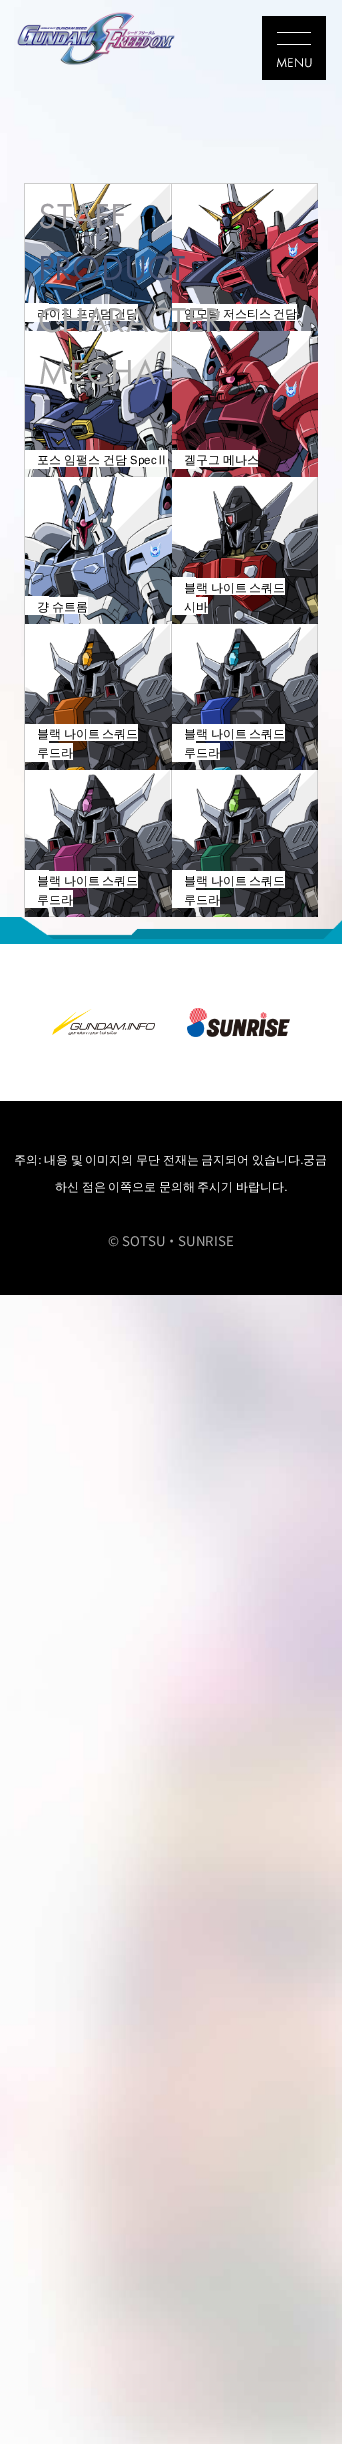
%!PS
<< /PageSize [342 2444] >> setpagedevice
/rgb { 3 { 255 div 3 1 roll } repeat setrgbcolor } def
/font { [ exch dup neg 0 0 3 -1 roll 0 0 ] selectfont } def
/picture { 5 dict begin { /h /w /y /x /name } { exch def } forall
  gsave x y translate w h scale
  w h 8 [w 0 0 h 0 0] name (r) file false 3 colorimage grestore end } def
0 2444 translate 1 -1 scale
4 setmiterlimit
255 255 255 rgb
0 0 342 2444 rectfill
(img/1.rgb) 0 0 342 2444 picture
(img/2.rgb) 17 12 158 54 picture
[
  [262 16 64 64 0 0 0]
  [277 32 34 1 255 255 255]
  [277 44 34 1 255 255 255]
  [24 183 1 734 204 204 204]
  [25 183 293 1 204 204 204]
  [25 184 146 54 255 255 255]
  [171 184 1 32 204 204 204]
] { aload pop rgb rectfill } forall
238 238 238 rgb
170 330 moveto 170 184 lineto 25 330 lineto closepath fill
(img/3.rgb) 25 184 147 147 picture
[
  [25 303 24 19 255 255 255]
  [49 304 89 17 255 255 255]
  [172 184 145 62 255 255 255]
  [317 184 1 18 204 204 204]
] { aload pop rgb rectfill } forall
238 238 238 rgb
317 330 moveto 172 330 lineto 172 329 lineto 317 184 lineto closepath fill
(img/4.rgb) 172 184 146 147 picture
[
  [172 303 24 19 255 255 255]
  [196 304 101 17 255 255 255]
  [25 331 146 69 255 255 255]
  [171 331 1 39 204 204 204]
  [48 476 97 1 204 204 204]
] { aload pop rgb rectfill } forall
238 238 238 rgb
170 476 moveto 25 476 lineto 170 331 lineto closepath fill
(img/5.rgb) 25 331 147 146 picture
[
  [25 450 24 19 255 255 255]
  [49 450 119 17 255 255 255]
  [172 331 140 51 255 255 255]
  [190 476 3 1 204 204 204]
] { aload pop rgb rectfill } forall
238 238 238 rgb
317 476 moveto 317 331 lineto 172 476 lineto closepath fill
(img/6.rgb) 172 331 146 146 picture
[
  [172 450 24 19 255 255 255]
  [196 450 62 17 255 255 255]
  [25 477 140 61 255 255 255]
  [148 623 2 1 204 204 204]
] { aload pop rgb rectfill } forall
238 238 238 rgb
170 623 moveto 170 477 lineto 25 623 lineto closepath fill
(img/7.rgb) 25 477 147 147 picture
[
  [25 596 24 19 255 255 255]
  [49 597 39 17 255 255 255]
  [172 477 145 77 255 255 255]
] { aload pop rgb rectfill } forall
(img/8.rgb) 172 540 11 7 picture
204 204 204 rgb
317 477 1 38 rectfill
181 623 18 1 rectfill
238 238 238 rgb
317 623 moveto 172 623 lineto 172 622 lineto 317 477 lineto closepath fill
(img/9.rgb) 172 481 146 143 picture
[
  [172 577 24 38 255 255 255]
  [196 578 89 17 255 255 255]
  [196 597 12 17 255 255 255]
  [25 624 146 80 255 255 255]
] { aload pop rgb rectfill } forall
(img/10.rgb) 25 687 24 17 picture
204 204 204 rgb
171 624 1 30 rectfill
48 769 8 1 rectfill
238 238 238 rgb
170 769 moveto 25 769 lineto 170 624 lineto closepath fill
(img/11.rgb) 25 627 147 143 picture
[
  [25 724 24 38 255 255 255]
  [49 724 89 17 255 255 255]
  [49 743 24 17 255 255 255]
  [172 624 145 80 255 255 255]
] { aload pop rgb rectfill } forall
(img/12.rgb) 172 687 24 17 picture
204 204 204 rgb
317 624 1 30 rectfill
195 769 8 1 rectfill
238 238 238 rgb
317 769 moveto 317 624 lineto 172 769 lineto closepath fill
(img/13.rgb) 172 627 146 143 picture
[
  [172 724 24 38 255 255 255]
  [196 724 89 17 255 255 255]
  [196 743 24 17 255 255 255]
  [25 770 146 81 255 255 255]
] { aload pop rgb rectfill } forall
(img/14.rgb) 25 833 24 18 picture
204 204 204 rgb
171 770 1 30 rectfill
48 916 8 1 rectfill
238 238 238 rgb
170 916 moveto 170 770 lineto 25 916 lineto closepath fill
(img/15.rgb) 25 773 147 144 picture
[
  [25 870 24 38 255 255 255]
  [49 871 89 17 255 255 255]
  [49 890 24 17 255 255 255]
  [172 770 145 81 255 255 255]
] { aload pop rgb rectfill } forall
(img/16.rgb) 172 833 24 18 picture
204 204 204 rgb
317 770 1 30 rectfill
195 916 8 1 rectfill
238 238 238 rgb
317 916 moveto 172 916 lineto 172 915 lineto 317 770 lineto closepath fill
(img/17.rgb) 172 773 146 144 picture
[
  [172 870 24 38 255 255 255]
  [196 871 89 17 255 255 255]
  [196 890 24 17 255 255 255]
] { aload pop rgb rectfill } forall
(img/18.rgb) 0 917 342 27 picture
0 944 342 157 rectfill
(img/19.rgb) 52 1009 103 26 picture
(img/20.rgb) 187 1008 103 29 picture
0 0 0 rgb
0 1101 342 194 rectfill
/FuturaPT-Regular 13.25 font
255 255 255 rgb
276 67 moveto (MENU) show
/FuturaPT-Regular 36 font
160 158 162 rgb
38 228 moveto (STAFF) show
69 83 116 rgb
38 280 moveto (PRODUCT) show
170 170 170 rgb
38 384 moveto (MECHA) show
/WenQuanYiZenHei-Medium 12 font
0 0 0 rgb
37 318 moveto -1 0 32 (라이징 프리덤 건담) widthshow
184 318 moveto -1 0 32 (임모탈 저스티스 건담) widthshow
/FuturaPT-Regular 36 font
170 170 170 rgb
38 332 moveto (CHARACTER) show
/WenQuanYiZenHei-Medium 12 font
0 0 0 rgb
37 464 moveto -0.5 0 32 (포스 임펄스 건담 SpecⅡ) widthshow
184 464 moveto -1 0 32 (겔구그 메나스) widthshow
37 611 moveto -1 0 32 (걍 슈트롬) widthshow
184 592 moveto -1 0 32 (블랙 나이트 스쿼드) widthshow
184 611 moveto (시바) show
37 738 moveto -1 0 32 (블랙 나이트 스쿼드) widthshow
37 757 moveto (루드라) show
184 738 moveto -1 0 32 (블랙 나이트 스쿼드) widthshow
184 757 moveto (루드라) show
37 885 moveto -1 0 32 (블랙 나이트 스쿼드) widthshow
37 904 moveto (루드라) show
184 885 moveto -1 0 32 (블랙 나이트 스쿼드) widthshow
184 904 moveto (루드라) show
255 255 255 rgb
14 1164 moveto -1 0 32 (주의: 내용 및 이미지의 무단 전재는 금지되어 있습니다.궁금) widthshow
55 1191 moveto -1 0 32 (하신 점은 이쪽으로 문의해 주시기 바랍니다.) widthshow
/NotoSansJP-Regular 13.25 font
170 170 170 rgb
108 1246 moveto (© SOTSU・SUNRISE) show
showpage
